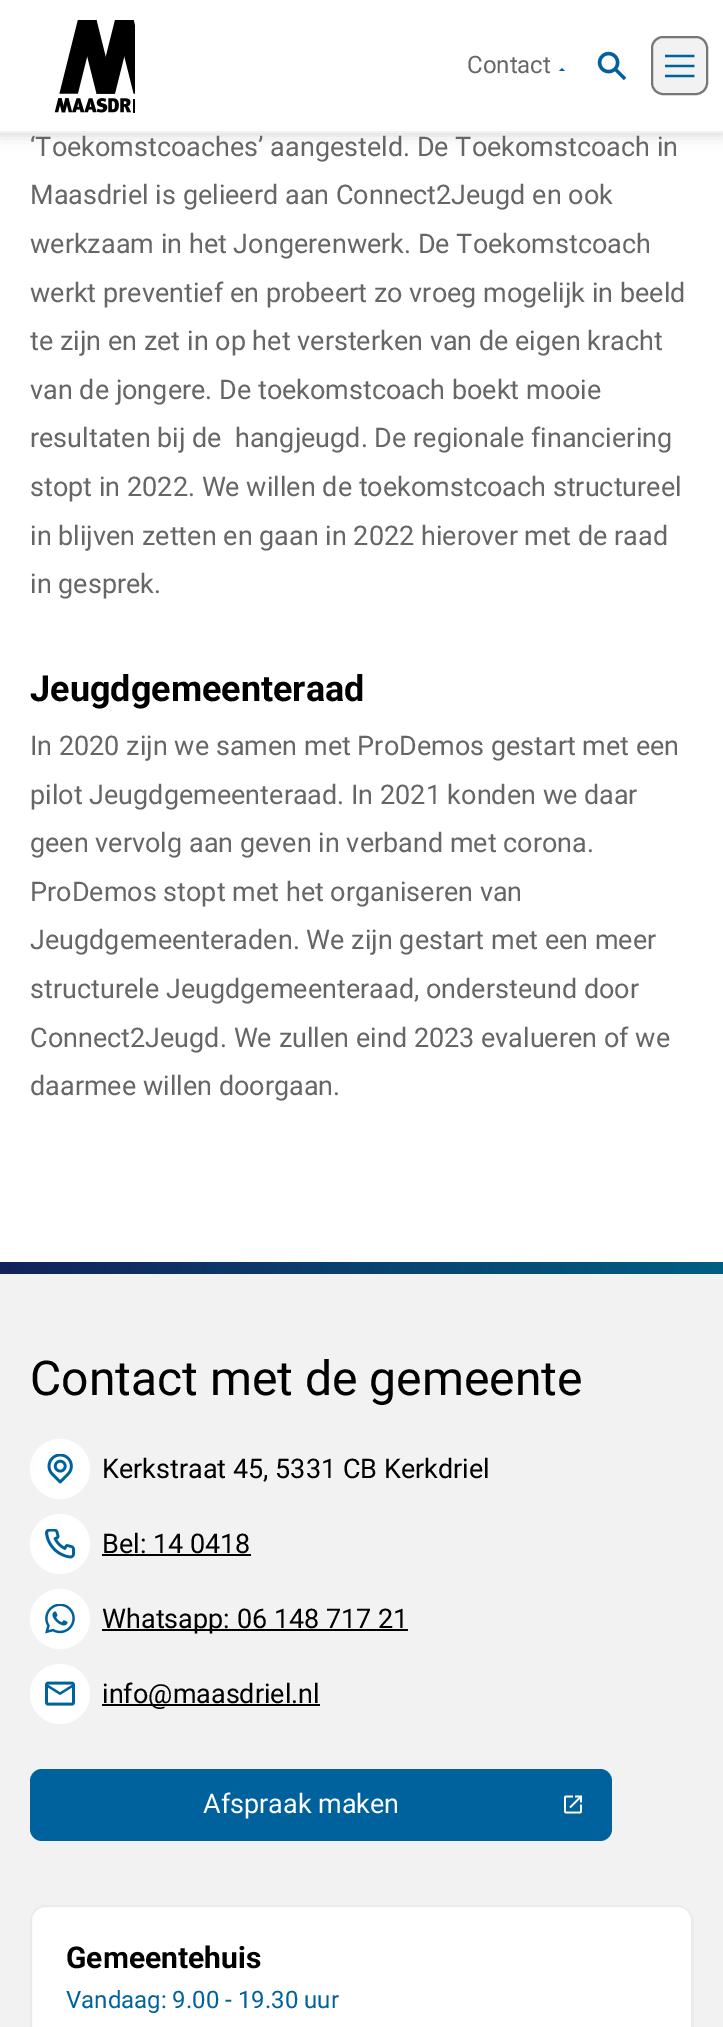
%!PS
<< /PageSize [723 2027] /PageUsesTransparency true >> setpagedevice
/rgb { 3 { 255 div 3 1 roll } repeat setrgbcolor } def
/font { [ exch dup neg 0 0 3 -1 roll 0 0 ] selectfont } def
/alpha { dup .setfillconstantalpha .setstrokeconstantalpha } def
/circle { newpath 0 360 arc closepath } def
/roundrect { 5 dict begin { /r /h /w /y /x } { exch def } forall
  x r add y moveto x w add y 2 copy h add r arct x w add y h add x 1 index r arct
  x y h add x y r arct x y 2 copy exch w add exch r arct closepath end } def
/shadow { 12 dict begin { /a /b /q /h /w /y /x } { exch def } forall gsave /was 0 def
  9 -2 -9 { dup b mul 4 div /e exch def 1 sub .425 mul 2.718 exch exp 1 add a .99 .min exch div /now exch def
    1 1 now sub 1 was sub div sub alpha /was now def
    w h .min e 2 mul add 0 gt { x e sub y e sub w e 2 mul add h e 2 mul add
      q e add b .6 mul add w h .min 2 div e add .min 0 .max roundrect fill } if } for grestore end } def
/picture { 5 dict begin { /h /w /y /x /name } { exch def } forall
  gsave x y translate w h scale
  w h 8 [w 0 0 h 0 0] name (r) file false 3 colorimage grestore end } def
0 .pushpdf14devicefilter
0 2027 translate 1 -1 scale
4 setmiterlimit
255 255 255 rgb
0 0 723 2027 rectfill
0 0 0 rgb
0 3 723 132 0 7 0.16 shadow
255 255 255 rgb
0 0 723 131 rectfill
242 242 242 rgb
0 131 723 2 rectfill
(img/1.rgb) 54 20 81 93 picture
gsave
557 60 16 11 rectclip
0 98 156 rgb
4.1 setlinewidth
2 setlinecap
582 71 moveto 572 81.5 lineto 562 71 lineto stroke
grestore
(img/2.rgb) 597 51 30 30 picture
652 37 55 57 11 roundrect gsave fill grestore
118 118 118 rgb
2 setlinewidth
stroke
(img/3.rgb) 665 54 30 24 picture
242 242 242 rgb
0 1274 723 753 rectfill
gsave 0 1262 moveto 723 1262 lineto 723 1274 lineto 0 1274 lineto closepath clip newpath
<< /ShadingType 2 /ColorSpace /DeviceRGB /Coords [0 1268 723 1268] /Extend [true true] /Function << /FunctionType 2 /Domain [0 1] /C0 [0.075 0.137 0.357] /C1 [0 0.373 0.506] /N 1 >> >> shfill grestore
255 255 255 rgb
60 1469 30 circle fill
(img/4.rgb) 47 1454 26 30 picture
60 1544 30 circle fill
(img/5.rgb) 45 1529 30 30 picture
0 0 0 rgb
102 1554 149 2 rectfill
255 255 255 rgb
60 1619 30 circle fill
(img/6.rgb) 45 1604 30 30 picture
0 0 0 rgb
102 1629 306 2 rectfill
255 255 255 rgb
60 1694 30 circle fill
(img/7.rgb) 45 1681 30 25 picture
0 0 0 rgb
102 1704 218 2 rectfill
0 98 156 rgb
30 1769 582 72 12 roundrect fill
(img/8.rgb) 564 1795 18 19 picture
255 255 255 rgb
30 1905 663 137 15 roundrect fill
0.08 alpha
0 0 0 rgb
31 1906 661 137 14 roundrect stroke
/Roboto-Regular 24 font
1 alpha
102 102 102 rgb
467 73 moveto (Contact) show
/Roboto-Regular 27 font
[
  [(‘Toekomstcoaches’ aangesteld. De Toekomstcoach in) 30 156]
  [(Maasdriel is gelieerd aan Connect2Jeugd en ook) 30 204]
  [(werkzaam in het Jongerenwerk. De Toekomstcoach) 30 253]
  [(werkt preventief en probeert zo vroeg mogelijk in beeld) 30 302]
  [(te zijn en zet in op het versterken van de eigen kracht) 30 350]
  [(van de jongere. De toekomstcoach boekt mooie) 30 399]
  [(resultaten bij de  hangjeugd. De regionale financiering) 30 447]
  [(stopt in 2022. We willen de toekomstcoach structureel) 30 496]
  [(in blijven zetten en gaan in 2022 hierover met de raad) 30 545]
  [(in gesprek.) 30 593]
] { aload pop moveto show } forall
/Roboto-Bold 36 font
0 0 0 rgb
30 701 moveto (Jeugdgemeenteraad) show
/Roboto-Regular 27 font
102 102 102 rgb
[
  [(In 2020 zijn we samen met ProDemos gestart met een) 30 755]
  [(pilot Jeugdgemeenteraad. In 2021 konden we daar) 30 804]
  [(geen vervolg aan geven in verband met corona.) 30 852]
  [(ProDemos stopt met het organiseren van) 30 901]
  [(Jeugdgemeenteraden. We zijn gestart met een meer) 30 949]
  [(structurele Jeugdgemeenteraad, ondersteund door) 30 998]
  [(Connect2Jeugd. We zullen eind 2023 evalueren of we) 30 1047]
  [(daarmee willen doorgaan.) 30 1095]
] { aload pop moveto show } forall
/Roboto-Regular 48 font
0 0 0 rgb
30 1395 moveto (Contact met de gemeente) show
/Roboto-Regular 27 font
[
  [(Kerkstraat 45, 5331 CB Kerkdriel) 102 1478]
  [(Bel: 14 0418) 102 1553]
  [(Whatsapp: 06 148 717 21) 102 1628]
  [(info@maasdriel.nl) 102 1703]
] { aload pop moveto show } forall
255 255 255 rgb
203 1813 moveto (Afspraak maken) show
/Roboto-Bold 30 font
0 0 0 rgb
66 1968 moveto (Gemeentehuis) show
/Roboto-Regular 24 font
0 98 156 rgb
66 2008 moveto (Vandaag: 9.00 - 19.30 uur) show
.poppdf14devicefilter showpage
